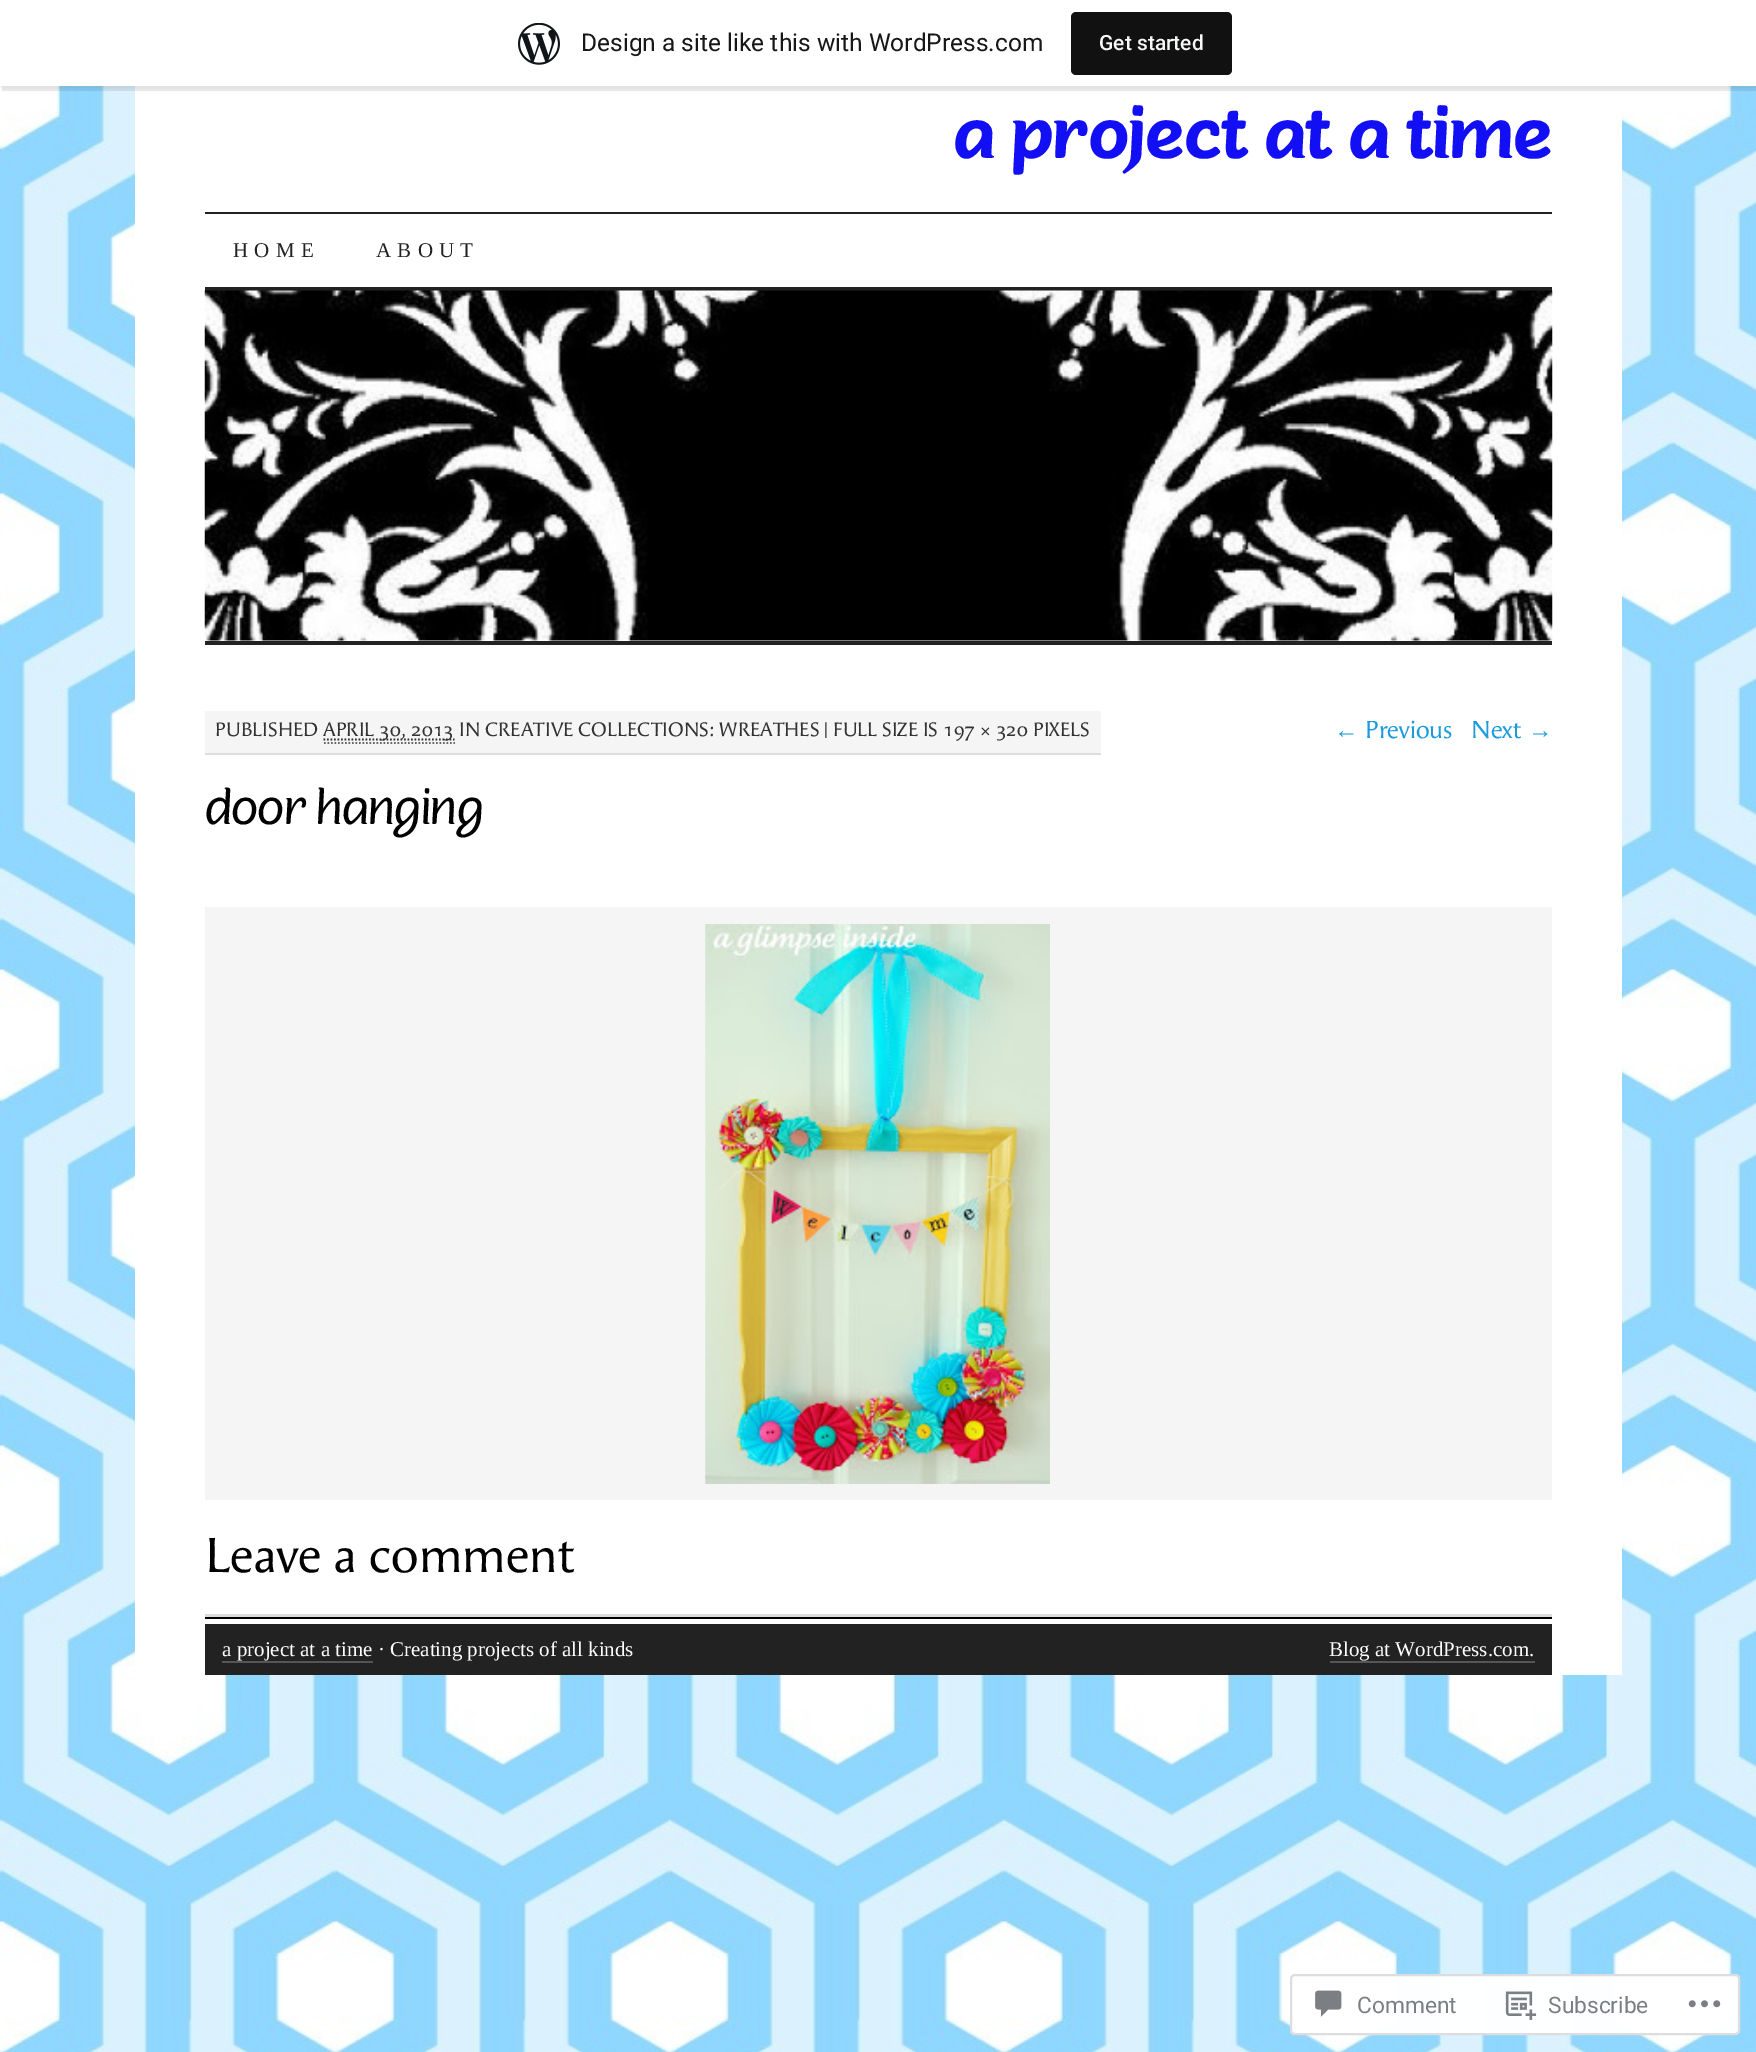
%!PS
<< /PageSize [1756 2052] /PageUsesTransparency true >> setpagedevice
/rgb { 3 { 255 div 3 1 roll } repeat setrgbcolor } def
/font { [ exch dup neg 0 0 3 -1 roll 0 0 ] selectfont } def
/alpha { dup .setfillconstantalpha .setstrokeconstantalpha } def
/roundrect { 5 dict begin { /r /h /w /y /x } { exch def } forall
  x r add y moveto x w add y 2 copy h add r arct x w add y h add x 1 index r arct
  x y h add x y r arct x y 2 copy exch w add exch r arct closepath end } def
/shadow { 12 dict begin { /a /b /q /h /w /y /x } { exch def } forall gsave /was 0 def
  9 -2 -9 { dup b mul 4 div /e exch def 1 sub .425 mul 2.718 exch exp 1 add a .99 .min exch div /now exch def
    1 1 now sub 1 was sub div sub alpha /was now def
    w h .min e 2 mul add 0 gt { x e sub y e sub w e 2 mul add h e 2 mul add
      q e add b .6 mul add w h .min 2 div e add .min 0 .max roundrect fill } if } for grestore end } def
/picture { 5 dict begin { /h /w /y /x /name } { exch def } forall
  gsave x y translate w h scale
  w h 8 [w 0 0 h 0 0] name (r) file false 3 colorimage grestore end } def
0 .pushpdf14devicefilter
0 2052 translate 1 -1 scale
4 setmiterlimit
255 255 255 rgb
0 0 1756 2052 rectfill
(img/1.rgb) 0 86 1756 1966 picture
135 86 1487 1589 rectfill
0 0 0 rgb
0 2 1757 86 0 2 0.05 shadow
0.08 alpha
2 86 moveto 2 91 lineto 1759 91 lineto 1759 5 lineto 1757 5 lineto 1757 86 lineto closepath fill
1 alpha
255 255 255 rgb
0 0 1756 86 rectfill
(img/2.rgb) 518 23 42 42 picture
17 17 17 rgb
1071 12 161 63 5 roundrect fill
34 34 34 rgb
205 212 1347 2 rectfill
205 287 1347 4 rectfill
(img/3.rgb) 204 290 1349 351 picture
[
  [205 641 1347 4 34 34 34]
  [205 711 896 42 245 245 245]
  [205 753 896 2 221 221 221]
] { aload pop rgb rectfill } forall
102 102 102 rgb
1.8 setlinewidth
[1.75 1.75] 0 setdash
324 743 moveto 455 743 lineto stroke
51 51 51 rgb
323.5 739.5 moveto 454.5 739.5 lineto stroke
245 245 245 rgb
205 907 1347 593 rectfill
(img/4.rgb) 705 924 345 560 picture
[
  [205 1614 1347 3 220 220 222]
  [205 1617 1347 2 0 0 0]
  [205 1624 1347 51 34 34 34]
  [222 1661 151 2 85 85 85]
  [1330 1661 205 2 85 85 85]
] { aload pop rgb rectfill } forall
0.98 alpha
255 255 255 rgb
1290 1974 450 61 5 roundrect fill
220 220 222 rgb
2 setlinewidth
[] 0 setdash
1291 1975 448 59 4 roundrect stroke
1 alpha
(img/5.rgb) 1315 1990 27 27 picture
(img/6.rgb) 1505 1991 32 29 picture
(img/7.rgb) 1688 2000 33 8 picture
/Roboto-Regular 24.5 font
23 23 23 rgb
581 51 moveto (Design a site like this with WordPress.com) show
/Roboto-Medium 21 font
246 247 247 rgb
1099 50 moveto (Get started) show
/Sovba-Bold 70 font
18 15 245 rgb
953 158 moveto (a project at a time) show
/LiberationSerif-Regular 21 font
34 34 34 rgb
233 257 moveto 6.25 0 (HOME) ashow
376 257 moveto 6.25 0 (ABOUT) ashow
/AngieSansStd-Regular 19.25 font
51 51 51 rgb
215 736 moveto (PUBLISHED) show
323 736 moveto (APRIL 30, 2013 IN CREATIVE COLLECTIONS: WREATHES | FULL SIZE IS 197 × 320 PIXELS) show
/LiberationSans-Regular 24.5 font
28 155 220 rgb
1334 738 moveto (←) show
/AngieSansStd-Regular 24.5 font
1365 738 moveto (Previous) show
1471 738 moveto (Next) show
/LiberationSans-Regular 24.5 font
1528 738 moveto (→) show
/Sovba-Regular 49 font
0 0 0 rgb
205 824 moveto (door hanging) show
/AngieSansStd-Regular 49 font
205 1572 moveto (Leave a comment) show
/LiberationSerif-Regular 21 font
255 255 255 rgb
222 1656 moveto (a project at a time · Creating projects of all kinds) show
1329 1656 moveto (Blog at WordPress.com.) show
/Roboto-Regular 22.75 font
123 127 132 rgb
1357 2013 moveto (Comment) show
1548 2013 moveto (Subscribe) show
.poppdf14devicefilter showpage
